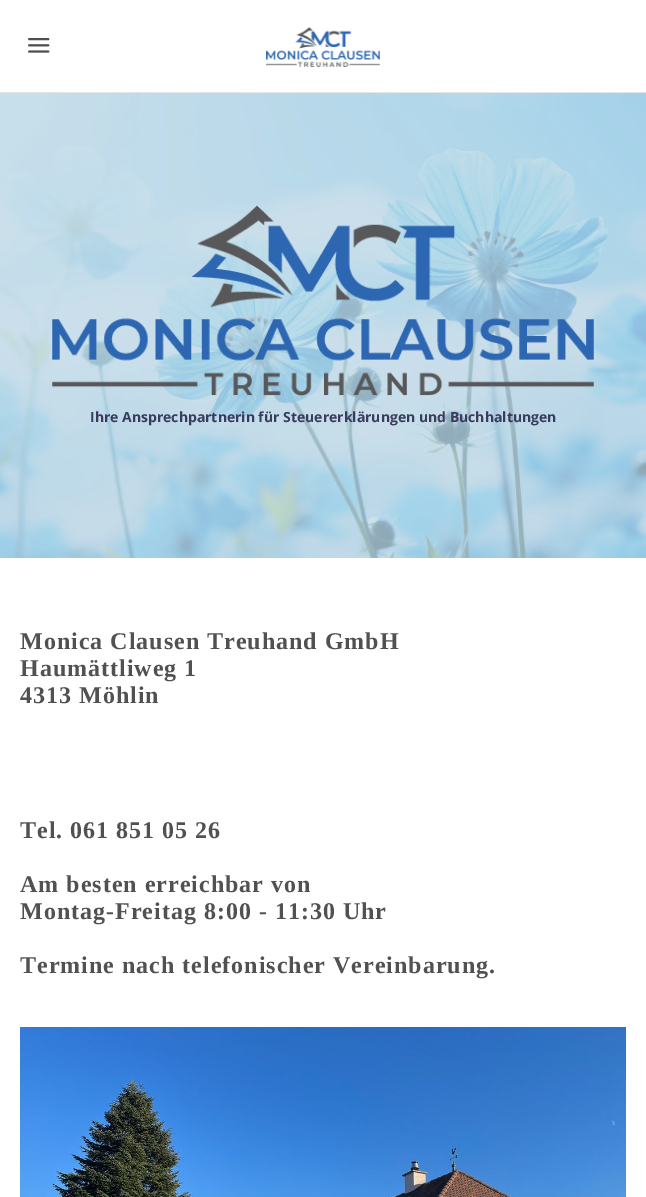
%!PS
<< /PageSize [646 1197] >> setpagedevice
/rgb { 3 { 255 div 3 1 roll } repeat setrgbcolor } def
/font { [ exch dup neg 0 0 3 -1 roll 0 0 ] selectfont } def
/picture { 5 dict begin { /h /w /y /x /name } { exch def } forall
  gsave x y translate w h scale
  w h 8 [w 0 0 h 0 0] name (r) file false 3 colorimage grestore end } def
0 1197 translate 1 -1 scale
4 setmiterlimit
255 255 255 rgb
0 0 646 1197 rectfill
(img/1.rgb) 28 38 22 15 picture
(img/2.rgb) 266 27 114 40 picture
229 229 229 rgb
0 92 646 1 rectfill
(img/3.rgb) 0 93 646 465 picture
(img/4.rgb) 52 205 542 191 picture
(img/5.rgb) 20 1027 606 170 picture
/OpenSans-Bold 14 font
57 60 94 rgb
90 422 moveto (Ihre Ansprechpartnerin für Steuererklärungen und Buchhaltungen) show
/LiberationSerif-Bold 24 font
81 81 81 rgb
20 649 moveto 1 0 (Monica Clausen Treuhand GmbH) ashow
20 676 moveto 1 0 (Haumättliweg 1) ashow
20 703 moveto 1 0 (4313 Möhlin) ashow
20 838 moveto 1 0 (Tel. 061 851 05 26) ashow
20 892 moveto 1 0 (Am besten erreichbar von) ashow
20 919 moveto 1 0 (Montag-Freitag 8:00 - 11:30 Uhr) ashow
20 973 moveto 1 0 (Termine nach telefonischer Vereinbarung.) ashow
showpage
